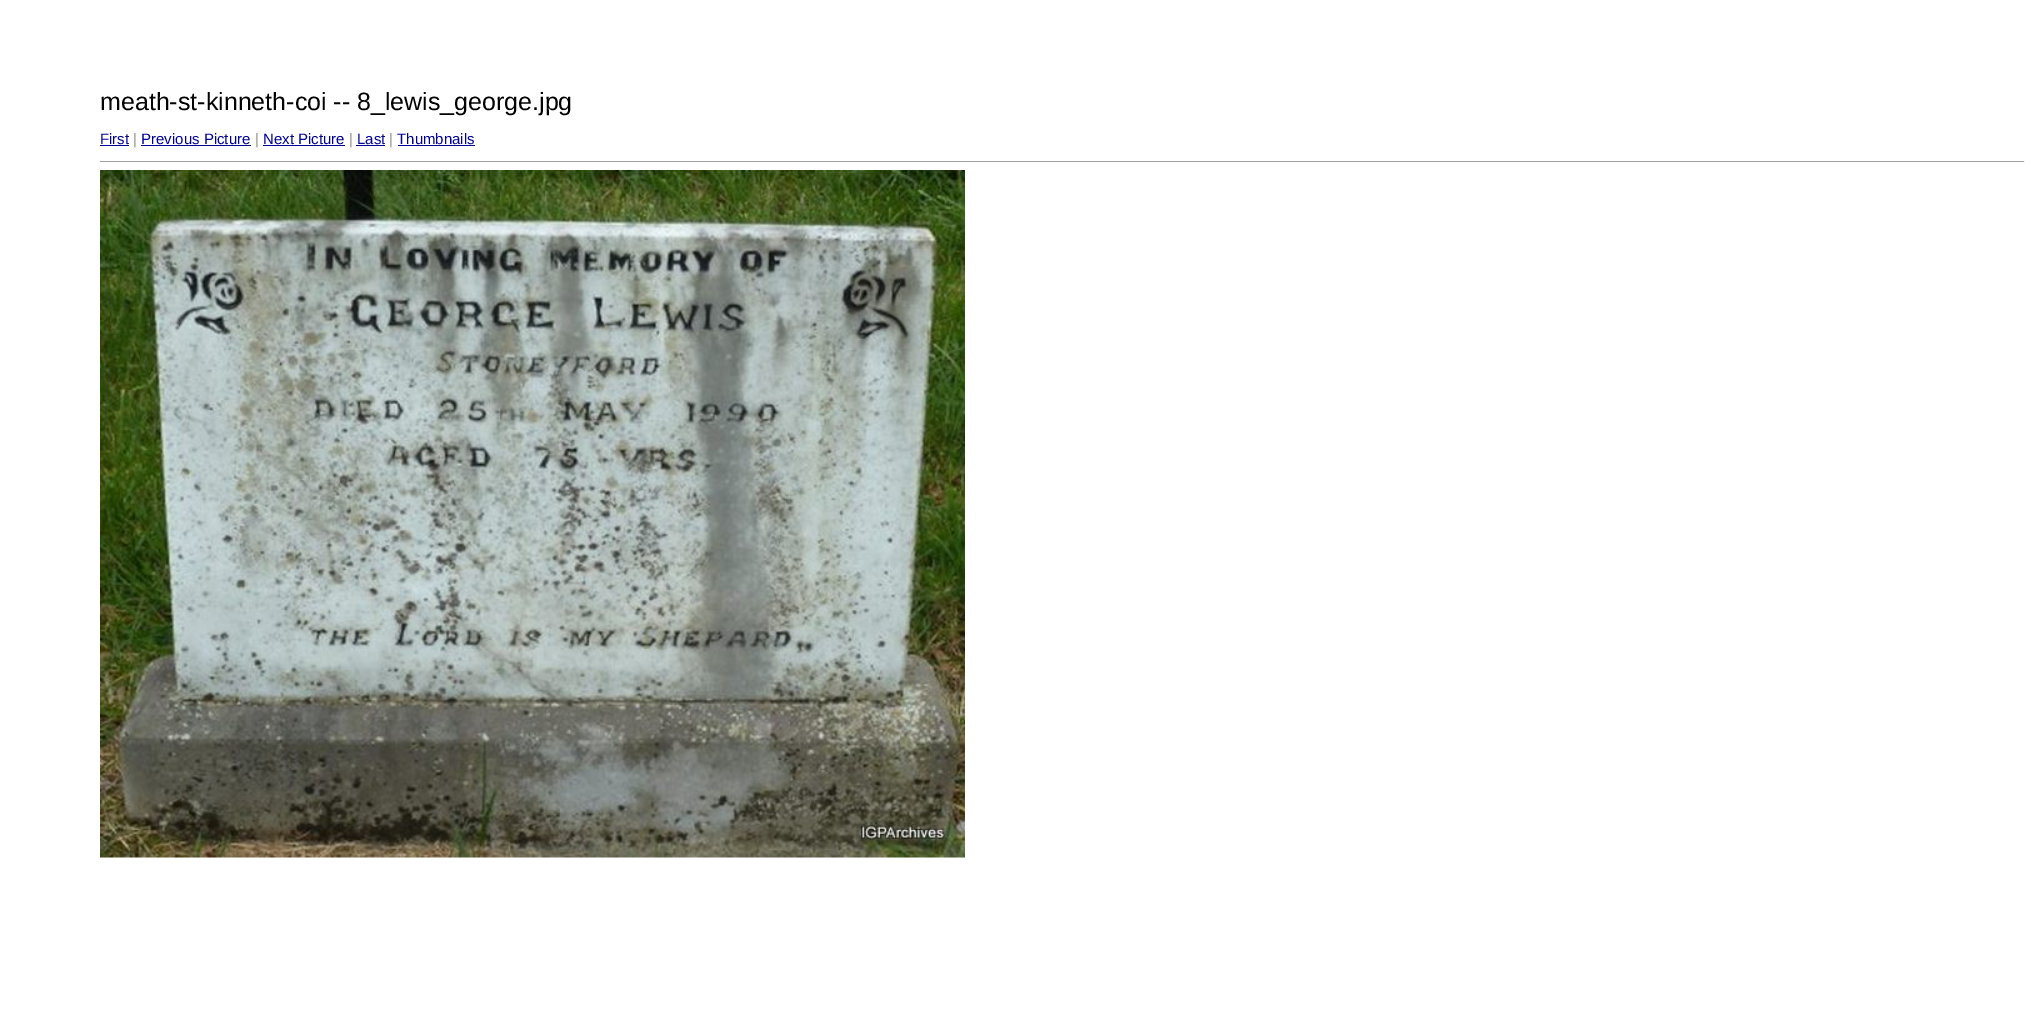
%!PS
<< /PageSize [2034 1010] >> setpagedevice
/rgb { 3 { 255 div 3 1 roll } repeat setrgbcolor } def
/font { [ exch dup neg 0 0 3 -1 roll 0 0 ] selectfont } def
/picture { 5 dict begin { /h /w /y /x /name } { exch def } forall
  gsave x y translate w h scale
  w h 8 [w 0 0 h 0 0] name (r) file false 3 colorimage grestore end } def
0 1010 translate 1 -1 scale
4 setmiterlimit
255 255 255 rgb
0 0 2034 1010 rectfill
[
  [100 145 29 1 0 0 153]
  [141 145 110 1 0 0 153]
  [263 145 82 1 0 0 153]
  [356 145 29 1 0 0 153]
  [398 145 77 1 0 0 153]
  [100 161 1925 1 159 159 159]
  [2024 161 1 1 238 238 238]
] { aload pop rgb rectfill } forall
(img/1.rgb) 100 170 865 688 picture
/LiberationSans-Regular 25 font
0 0 0 rgb
100 110 moveto (meath-st-kinneth-coi -- 8_lewis_george.jpg) show
/LiberationSans-Regular 15 font
0 0 153 rgb
100 144 moveto (First) show
151 151 151 rgb
133 144 moveto (|) show
0 0 153 rgb
141 144 moveto (Previous Picture) show
151 151 151 rgb
255 144 moveto (|) show
0 0 153 rgb
263 144 moveto (Next Picture) show
151 151 151 rgb
349 144 moveto (|) show
0 0 153 rgb
357 144 moveto (Last) show
151 151 151 rgb
389 144 moveto (|) show
0 0 153 rgb
397 144 moveto (Thumbnails) show
showpage
